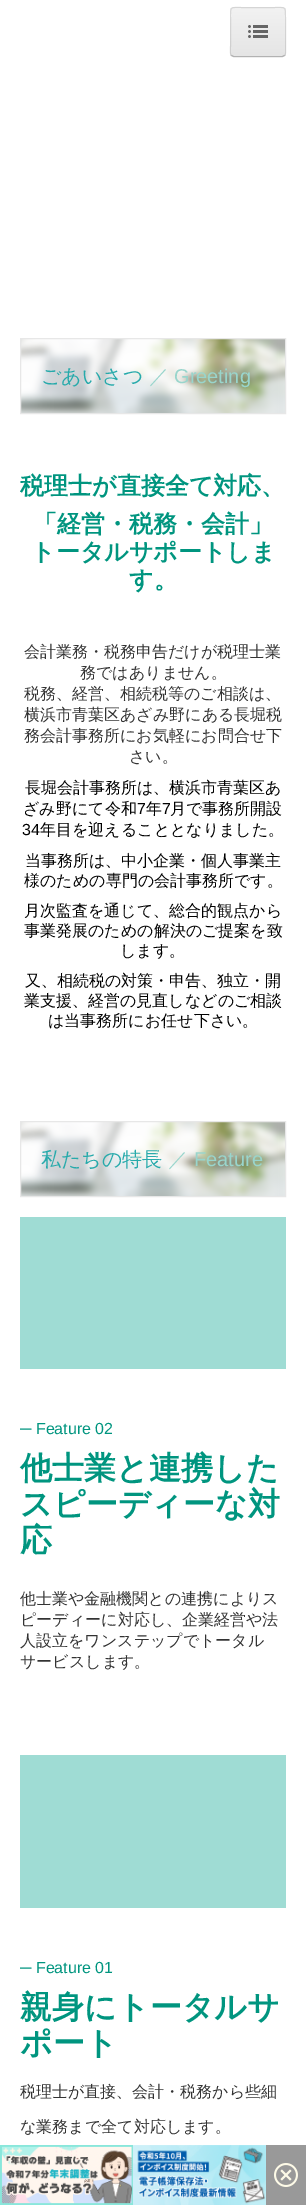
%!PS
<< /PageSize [306 2205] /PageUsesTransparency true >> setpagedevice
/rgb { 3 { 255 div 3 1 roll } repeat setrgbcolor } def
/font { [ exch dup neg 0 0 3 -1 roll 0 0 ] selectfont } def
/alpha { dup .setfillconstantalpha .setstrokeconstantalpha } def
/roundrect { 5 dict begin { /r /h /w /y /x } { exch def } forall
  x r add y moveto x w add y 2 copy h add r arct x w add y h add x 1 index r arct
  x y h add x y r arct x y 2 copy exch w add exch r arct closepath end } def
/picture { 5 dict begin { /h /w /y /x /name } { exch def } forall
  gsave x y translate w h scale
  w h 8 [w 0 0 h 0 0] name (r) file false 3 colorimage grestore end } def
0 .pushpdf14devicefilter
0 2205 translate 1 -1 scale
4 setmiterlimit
255 255 255 rgb
0 0 306 2205 rectfill
237 237 237 rgb
230 7 56 50 4 roundrect fill
gsave
230 7 56 50 4 roundrect clip newpath
gsave 230 8 moveto 286 8 lineto 286 56 lineto 230 56 lineto closepath clip newpath
<< /ShadingType 2 /ColorSpace /DeviceRGB /Coords [258 8 258 56] /Extend [true true] /Function << /FunctionType 2 /Domain [0 1] /C0 [0.949 0.949 0.949] /C1 [0.898 0.898 0.898] /N 1 >> >> shfill grestore
grestore
0.25 alpha
0 0 0 rgb
284.5 55.5 moveto 282.5 56.5 lineto 233.5 56.5 lineto 231.5 55.5 lineto stroke
0.1 alpha
231.5 55.5 moveto 229.5 53.5 230.5 47.5 230.5 46 curveto 230.5 18 lineto 230.5 6 230 7.5 242 7.5 curveto 274 7.5 lineto 286 7.5 285.5 6 285.5 18 curveto 285.5 46 lineto 285.5 47.5 286.5 53.5 284.5 55.5 curveto stroke
1 alpha
(img/1.rgb) 248 25 20 13 picture
(img/2.rgb) 21 339 264 74 picture
231 231 231 rgb
20.5 338.5 265 75 rectstroke
(img/2.rgb) 21 1122 264 74 picture
20.5 1121.5 265 75 rectstroke
159 220 212 rgb
20 1217 266 152 rectfill
20 1755 266 153 rectfill
(img/3.rgb) 0 2145 133 60 picture
(img/4.rgb) 133 2145 133 60 picture
153 153 153 rgb
266 2145 40 60 rectfill
(img/5.rgb) 274 2163 24 24 picture
/WenQuanYiZenHei-Medium 20 font
39 170 171 rgb
41 383 moveto (ごあいさつ) show
153 213 204 rgb
149 383 moveto (／) show
/LiberationSans-Regular 20 font
174 383 moveto (Greeting) show
/WenQuanYiZenHei-Bold 24 font
0 149 127 rgb
[
  [(税理士が直接全て対応、) 20 494]
  [(「経営・税務・会計」) 33 532]
  [(トータルサポートしま) 31 560]
  [(す。) 129 588]
] { aload pop moveto show } forall
/WenQuanYiZenHei-Medium 16 font
51 51 51 rgb
[
  [(会計業務・税務申告だけが税理士業) 24 657]
  [(務ではありません。) 80 678]
  [(税務、経営、相続税等のご相談は、) 24 699]
  [(横浜市青葉区あざみ野にある長堀税) 24 720]
  [(務会計事務所にお気軽にお問合せ下) 24 741]
  [(さい。) 129 762]
] { aload pop moveto show } forall
0 0 0 rgb
25 793 moveto (長堀会計事務所は、横浜市青葉区あ) show
23 814 moveto (ざみ野にて令和) show
/LiberationSans-Regular 16 font
137 814 moveto (7) show
/WenQuanYiZenHei-Medium 16 font
146 814 moveto (年) show
/LiberationSans-Regular 16 font
162 814 moveto (7) show
/WenQuanYiZenHei-Medium 16 font
170 814 moveto (月で事務所開設) show
/LiberationSans-Regular 16 font
22 835 moveto (34) show
/WenQuanYiZenHei-Medium 16 font
[
  [(年目を迎えることとなりました。) 40 835]
  [(当事務所は、中小企業・個人事業主) 25 866]
  [(様のための専門の会計事務所です。) 24 886]
  [(月次監査を通じて、総合的観点から) 24 916]
  [(事業発展のための解決のご提案を致) 24 936]
  [(します。) 120 956]
  [(又、相続税の対策・申告、独立・開) 25 986]
  [(業支援、経営の見直しなどのご相談) 24 1006]
  [(は当事務所にお任せ下さい。) 48 1026]
] { aload pop moveto show } forall
/WenQuanYiZenHei-Medium 20 font
39 170 171 rgb
41 1166 moveto (私たちの特長) show
153 213 204 rgb
168 1166 moveto (／) show
/LiberationSans-Regular 20 font
194 1166 moveto (Feature) show
/LiberationSans-Regular 16 font
0 149 127 rgb
20 1434 moveto (─ Feature 02) show
/WenQuanYiZenHei-Bold 32 font
[
  [(他士業と連携した) 20 1479]
  [(スピーディーな対) 20 1515]
  [(応) 20 1551]
] { aload pop moveto show } forall
/WenQuanYiZenHei-Medium 16 font
51 51 51 rgb
[
  [(他士業や金融機関との連携によりス) 20 1604]
  [(ピーディーに対応し、企業経営や法) 20 1625]
  [(人設立をワンステップでトータル) 20 1646]
  [(サービスします。) 20 1667]
] { aload pop moveto show } forall
/LiberationSans-Regular 16 font
0 149 127 rgb
20 1973 moveto (─ Feature 01) show
/WenQuanYiZenHei-Bold 32 font
20 2018 moveto (親身にトータルサ) show
20 2054 moveto (ポート) show
/WenQuanYiZenHei-Medium 16 font
51 51 51 rgb
20 2097 moveto (税理士が直接、会計・税務から些細) show
20 2132 moveto (な業務まで全て対応します。) show
.poppdf14devicefilter showpage
